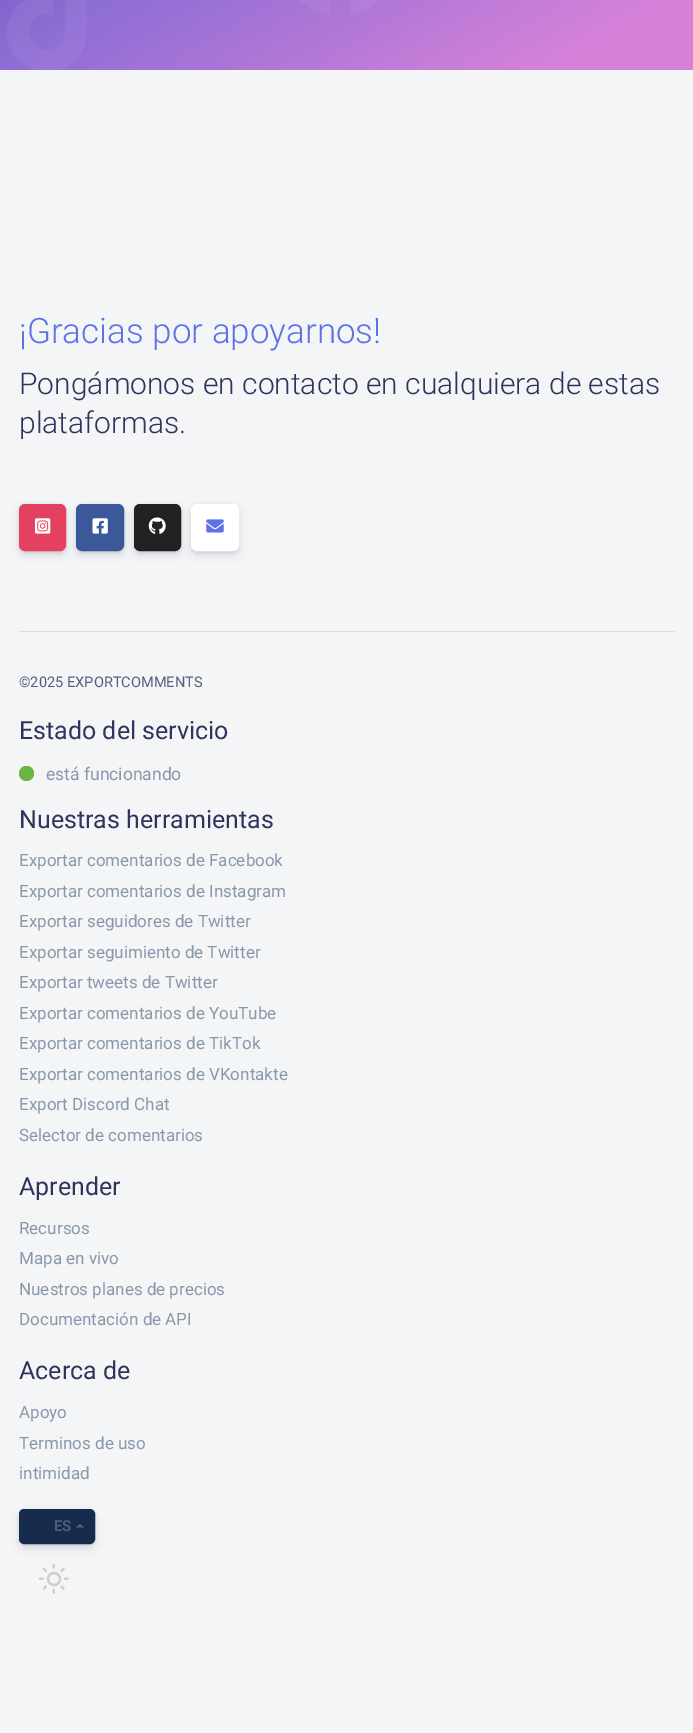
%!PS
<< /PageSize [693 1733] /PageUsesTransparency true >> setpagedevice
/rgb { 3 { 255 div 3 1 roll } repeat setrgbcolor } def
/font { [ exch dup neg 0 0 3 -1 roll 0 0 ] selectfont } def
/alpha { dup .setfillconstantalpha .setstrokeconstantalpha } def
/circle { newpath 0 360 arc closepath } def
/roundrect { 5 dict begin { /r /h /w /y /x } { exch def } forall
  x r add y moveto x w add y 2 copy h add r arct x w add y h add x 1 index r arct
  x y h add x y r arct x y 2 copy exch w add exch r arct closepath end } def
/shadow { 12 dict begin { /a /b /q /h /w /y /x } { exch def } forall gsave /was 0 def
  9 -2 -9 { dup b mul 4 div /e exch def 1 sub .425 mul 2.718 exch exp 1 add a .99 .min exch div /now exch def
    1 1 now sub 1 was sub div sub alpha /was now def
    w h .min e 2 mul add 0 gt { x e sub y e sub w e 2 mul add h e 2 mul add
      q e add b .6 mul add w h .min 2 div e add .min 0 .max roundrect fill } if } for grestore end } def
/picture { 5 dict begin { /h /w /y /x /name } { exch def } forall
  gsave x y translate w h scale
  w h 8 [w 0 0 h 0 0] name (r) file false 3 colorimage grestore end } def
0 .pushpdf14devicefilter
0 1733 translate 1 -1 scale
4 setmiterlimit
255 255 255 rgb
0 0 693 1733 rectfill
gsave 0 0 moveto 693 0 lineto 693 70 lineto 0 70 lineto closepath clip newpath
<< /ShadingType 2 /ColorSpace /DeviceRGB /Coords [59 -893 635 104] /Extend [true true] /Function << /FunctionType 3 /Domain [0 1] /Functions [<< /FunctionType 2 /Domain [0 1] /C0 [0.157 0.078 0.514] /C1 [0.157 0.078 0.514] /N 1 >> << /FunctionType 2 /Domain [0 1] /C0 [0.157 0.078 0.514] /C1 [0.561 0.431 0.835] /N 1 >> << /FunctionType 2 /Domain [0 1] /C0 [0.561 0.431 0.835] /C1 [0.843 0.51 0.851] /N 1 >> << /FunctionType 2 /Domain [0 1] /C0 [0.843 0.51 0.851] /C1 [0.843 0.51 0.851] /N 1 >>] /Bounds [0.15 0.7 0.94] /Encode [0 1 0 1 0 1 0 1] >> >> shfill grestore
0.05 alpha
117 -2 moveto 106 -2 96 -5 87 -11 curveto 87 18 lineto 87 25 88 33 86 40 curveto 83 55 70 68 55 71 curveto 45 73 34 71 25 65 curveto -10 42 10 -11 53 -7 curveto 53 15 lineto 47 13 40 14 36 18 curveto 14 36 47 65 62 42 curveto 67 35 65 25 65 18 curveto 65 -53 lineto 87 -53 lineto 87 -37 101 -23 117 -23 curveto closepath fill
401 -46 moveto 401 -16 379 10 350 14 curveto 350 -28 lineto 364 -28 lineto 366 -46 lineto 350 -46 lineto 350 -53 347 -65 357 -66 curveto 367 -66 lineto 367 -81 lineto 352 -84 334 -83 331 -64 curveto 330 -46 lineto 315 -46 lineto 315 -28 lineto 330 -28 lineto 330 14 lineto 279 6 262 -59 302 -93 curveto 311 -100 322 -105 334 -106 curveto 348 -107 362 -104 374 -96 curveto 390 -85 401 -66 401 -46 curveto closepath fill
1 alpha
244 245 247 rgb
0 70 693 1663 rectfill
0 0 0 rgb
19 505 47 48 6 2 0.08 shadow
50 50 93 rgb
19 509 47 47 6 4 0.11 shadow
228 64 95 rgb
19.5 504.5 46 46 5.5 roundrect gsave fill grestore
stroke
(img/1.rgb) 35 518 16 16 picture
0 0 0 rgb
76 505 48 48 6 2 0.08 shadow
50 50 93 rgb
76 509 48 47 6 4 0.11 shadow
59 89 153 rgb
76.5 504.5 47 46 5.5 roundrect gsave fill grestore
stroke
(img/2.rgb) 92 518 16 16 picture
0 0 0 rgb
134 505 47 48 6 2 0.08 shadow
50 50 93 rgb
134 509 47 47 6 4 0.11 shadow
34 34 34 rgb
134.5 504.5 46 46 5.5 roundrect gsave fill grestore
stroke
(img/3.rgb) 148 517 18 17 picture
0 0 0 rgb
191 505 48 48 6 2 0.08 shadow
50 50 93 rgb
191 509 48 47 6 4 0.11 shadow
255 255 255 rgb
191.5 504.5 47 46 5.5 roundrect gsave fill grestore
stroke
(img/4.rgb) 206 519 18 14 picture
220 221 222 rgb
19 631 656 1 rectfill
104 181 65 rgb
26.5 773.5 7.5 circle fill
0 0 0 rgb
19 1510 76 35 5 2 0.08 shadow
50 50 93 rgb
19 1514 76 35 5 4 0.11 shadow
23 43 77 rgb
19.5 1509.5 75 34 4.5 roundrect gsave fill grestore
stroke
82 95 127 rgb
84 1527.5 moveto 76 1527.5 lineto 80 1524 lineto closepath fill
(img/5.rgb) 39 1564 30 30 picture
/Roboto-Light 35 font
94 114 228 rgb
19 343 moveto (¡Gracias por apoyarnos!) show
/Roboto-Light 30 font
50 50 93 rgb
19 394 moveto (Pongámonos en contacto en cualquiera de estas) show
19 433 moveto (plataformas.) show
/Roboto-Regular 14.6 font
82 95 127 rgb
19 687 moveto (©2025 EXPORTCOMMENTS) show
/Roboto-Regular 25 font
50 50 93 rgb
19 739 moveto (Estado del servicio) show
/Roboto-Regular 17.5 font
136 152 170 rgb
46 780 moveto (está funcionando) show
/Roboto-Regular 25 font
50 50 93 rgb
19 828 moveto (Nuestras herramientas) show
/Roboto-Regular 17 font
136 152 170 rgb
[
  [(Exportar comentarios de Facebook) 19 866]
  [(Exportar comentarios de Instagram) 19 897]
  [(Exportar seguidores de Twitter) 19 927]
  [(Exportar seguimiento de Twitter) 19 958]
  [(Exportar tweets de Twitter) 19 988]
  [(Exportar comentarios de YouTube) 19 1019]
  [(Exportar comentarios de TikTok) 19 1049]
  [(Exportar comentarios de VKontakte) 19 1080]
  [(Export Discord Chat) 19 1110]
  [(Selector de comentarios) 19 1141]
] { aload pop moveto show } forall
/Roboto-Regular 25 font
50 50 93 rgb
19 1195 moveto (Aprender) show
/Roboto-Regular 17 font
136 152 170 rgb
[
  [(Recursos) 19 1234]
  [(Mapa en vivo) 19 1264]
  [(Nuestros planes de precios) 19 1295]
  [(Documentación de API) 19 1325]
] { aload pop moveto show } forall
/Roboto-Regular 25 font
50 50 93 rgb
19 1379 moveto (Acerca de) show
/Roboto-Regular 17 font
136 152 170 rgb
[
  [(Apoyo) 19 1418]
  [(Terminos de uso) 19 1449]
  [(intimidad) 19 1479]
] { aload pop moveto show } forall
/Roboto-SemiBold 15 font
82 95 127 rgb
54 1531 moveto (ES) show
.poppdf14devicefilter showpage
